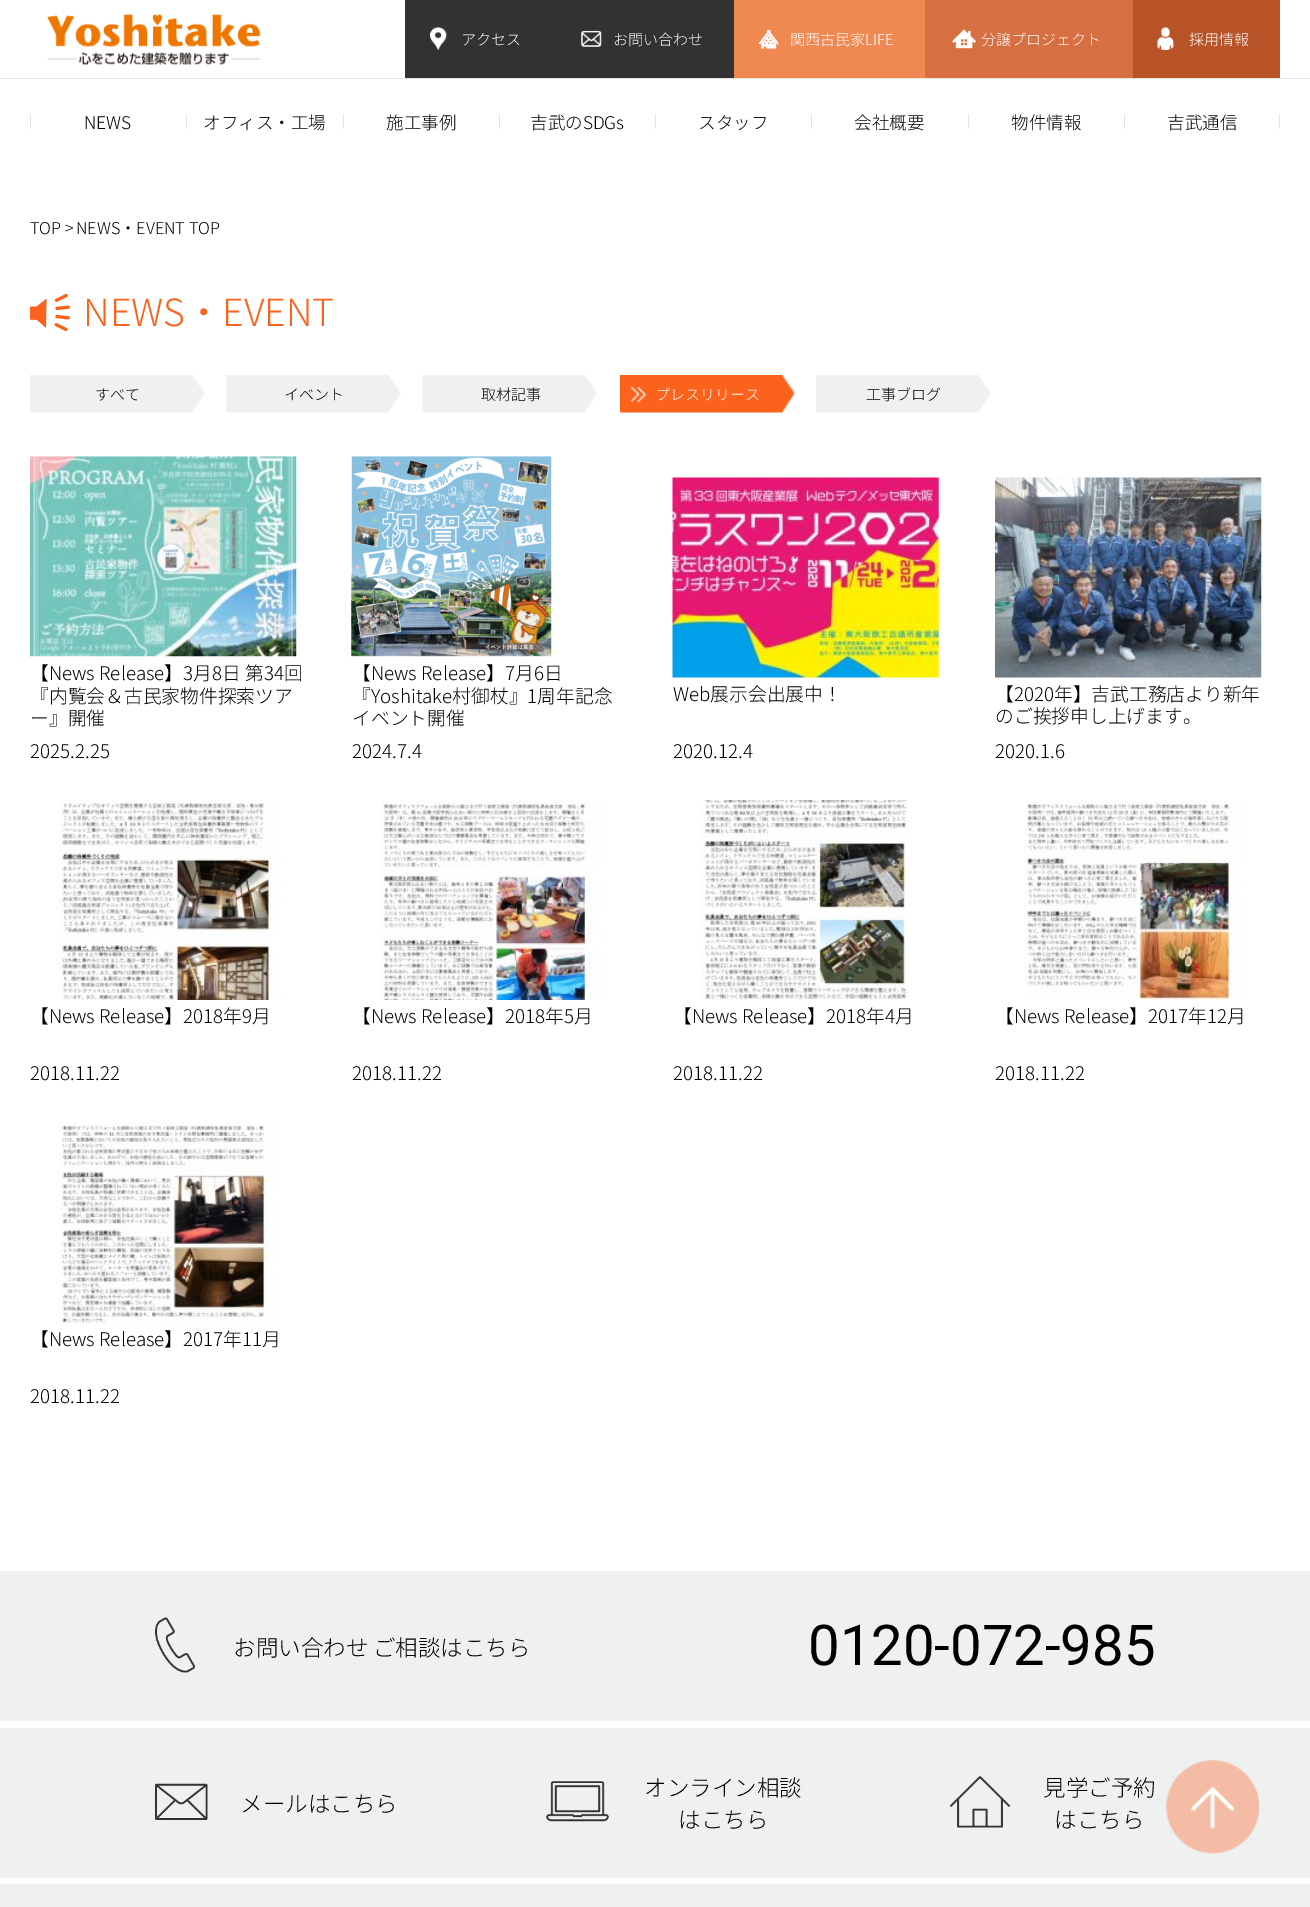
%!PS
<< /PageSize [1310 1907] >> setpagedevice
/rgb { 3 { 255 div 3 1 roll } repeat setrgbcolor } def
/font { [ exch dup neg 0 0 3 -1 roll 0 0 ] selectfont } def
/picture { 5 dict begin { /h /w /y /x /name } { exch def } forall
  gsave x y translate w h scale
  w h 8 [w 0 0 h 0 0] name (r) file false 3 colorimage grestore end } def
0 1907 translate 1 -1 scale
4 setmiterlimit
255 255 255 rgb
0 0 1310 1907 rectfill
(img/1.rgb) 47 14 214 51 picture
50 50 50 rgb
405 0 329 78 rectfill
(img/2.rgb) 430 27 17 23 picture
(img/3.rgb) 581 30 21 17 picture
240 136 82 rgb
734 0 191 78 rectfill
(img/4.rgb) 758 30 21 19 picture
214 112 67 rgb
925 0 208 78 rectfill
(img/5.rgb) 952 29 24 20 picture
184 83 40 rgb
1133 0 147 78 rectfill
(img/6.rgb) 1157 27 17 23 picture
[
  [30 114 1 15 228 228 227]
  [186 114 1 15 228 228 227]
  [343 114 1 15 228 228 227]
  [499 114 1 15 228 228 227]
  [655 114 1 15 228 228 227]
  [811 114 1 15 228 228 227]
  [968 114 1 15 228 228 227]
  [1124 114 1 15 228 228 227]
  [1279 114 1 15 228 228 227]
  [0 78 1310 1 228 228 227]
] { aload pop rgb rectfill } forall
(img/7.rgb) 30 294 40 37 picture
(img/8.rgb) 30 375 175 38 picture
(img/9.rgb) 226 375 175 38 picture
(img/10.rgb) 422 375 176 38 picture
(img/11.rgb) 620 375 175 38 picture
(img/9.rgb) 816 375 175 38 picture
(img/12.rgb) 30 456 267 201 picture
(img/13.rgb) 351 456 201 201 picture
(img/14.rgb) 672 477 267 201 picture
(img/15.rgb) 995 477 267 201 picture
(img/16.rgb) 59 800 222 200 picture
(img/17.rgb) 380 800 223 200 picture
(img/18.rgb) 701 800 211 200 picture
(img/19.rgb) 1024 800 220 200 picture
(img/20.rgb) 59 1122 218 201 picture
239 240 240 rgb
0 1571 1310 150 rectfill
(img/21.rgb) 155 1617 40 56 picture
0 1728 1310 150 rectfill
(img/22.rgb) 155 1783 53 37 picture
(img/23.rgb) 546 1781 63 41 picture
(img/24.rgb) 950 1776 60 52 picture
0 1884 1310 23 rectfill
(img/25.rgb) 1166 1760 94 94 picture
/NotoSansJP-Light 15 font
255 255 255 rgb
[
  [(アクセス) 461 45]
  [(お問い合わせ) 613 45]
  [(関西古民家LIFE) 790 45]
  [(分譲プロジェクト) 981 45]
  [(採用情報) 1189 45]
] { aload pop moveto show } forall
/NotoSansJP-Light 17.5 font
0 0 0 rgb
[
  [(NEWS) 84 129]
  [(オフィス・工場) 203 129]
  [(施工事例) 386 129]
  [(吉武のSDGs) 530 129]
  [(スタッフ) 698 129]
  [(会社概要) 854 129]
  [(物件情報) 1011 129]
  [(吉武通信) 1167 129]
] { aload pop moveto show } forall
/NotoSansJP-Light 16.25 font
30 234 moveto (TOP >) show
76 234 moveto (NEWS・EVENT TOP) show
/NotoSansJP-Light 37.5 font
251 98 28 rgb
83 326 moveto (NEWS・EVENT) show
/NotoSansJP-Light 15 font
0 0 0 rgb
[
  [(すべて) 95 400]
  [(イベント) 284 400]
  [(取材記事) 481 400]
] { aload pop moveto show } forall
255 255 255 rgb
655 400 moveto (プレスリリース) show
0 0 0 rgb
866 400 moveto (工事ブログ) show
/NotoSansJP-Light 18.75 font
[
  [(【News Release】3月8日 第34回) 30 680]
  [(『内覧会＆古民家物件探索ツア) 30 703]
  [(ー』開催) 30 725]
  [(2025.2.25) 30 758]
  [(【News Release】7月6日) 352 680]
  [(『Yoshitake村御杖』1周年記念) 352 703]
  [(イベント開催) 352 725]
  [(2024.7.4) 352 758]
  [(Web展示会出展中！) 673 701]
  [(2020.12.4) 673 758]
  [(【2020年】吉武工務店より新年) 995 701]
  [(のご挨拶申し上げます。) 995 723]
  [(2020.1.6) 995 758]
  [(【News Release】2018年9月) 30 1023]
  [(2018.11.22) 30 1080]
  [(【News Release】2018年5月) 352 1023]
  [(2018.11.22) 352 1080]
  [(【News Release】2018年4月) 673 1023]
  [(2018.11.22) 673 1080]
  [(【News Release】2017年12月) 995 1023]
  [(2018.11.22) 995 1080]
  [(【News Release】2017年11月) 30 1346]
  [(2018.11.22) 30 1403]
] { aload pop moveto show } forall
/NotoSansJP-Light 22.5 font
233 1656 moveto (お問い合わせ ご相談はこちら) show
/Roboto-Regular 56.25 font
808 1665 moveto (0120-072-985) show
/NotoSansJP-Light 22.5 font
[
  [(メールはこちら) 240 1812]
  [(オンライン相談) 644 1796]
  [(はこちら) 678 1828]
  [(見学ご予約) 1043 1796]
  [(はこちら) 1054 1828]
] { aload pop moveto show } forall
showpage
